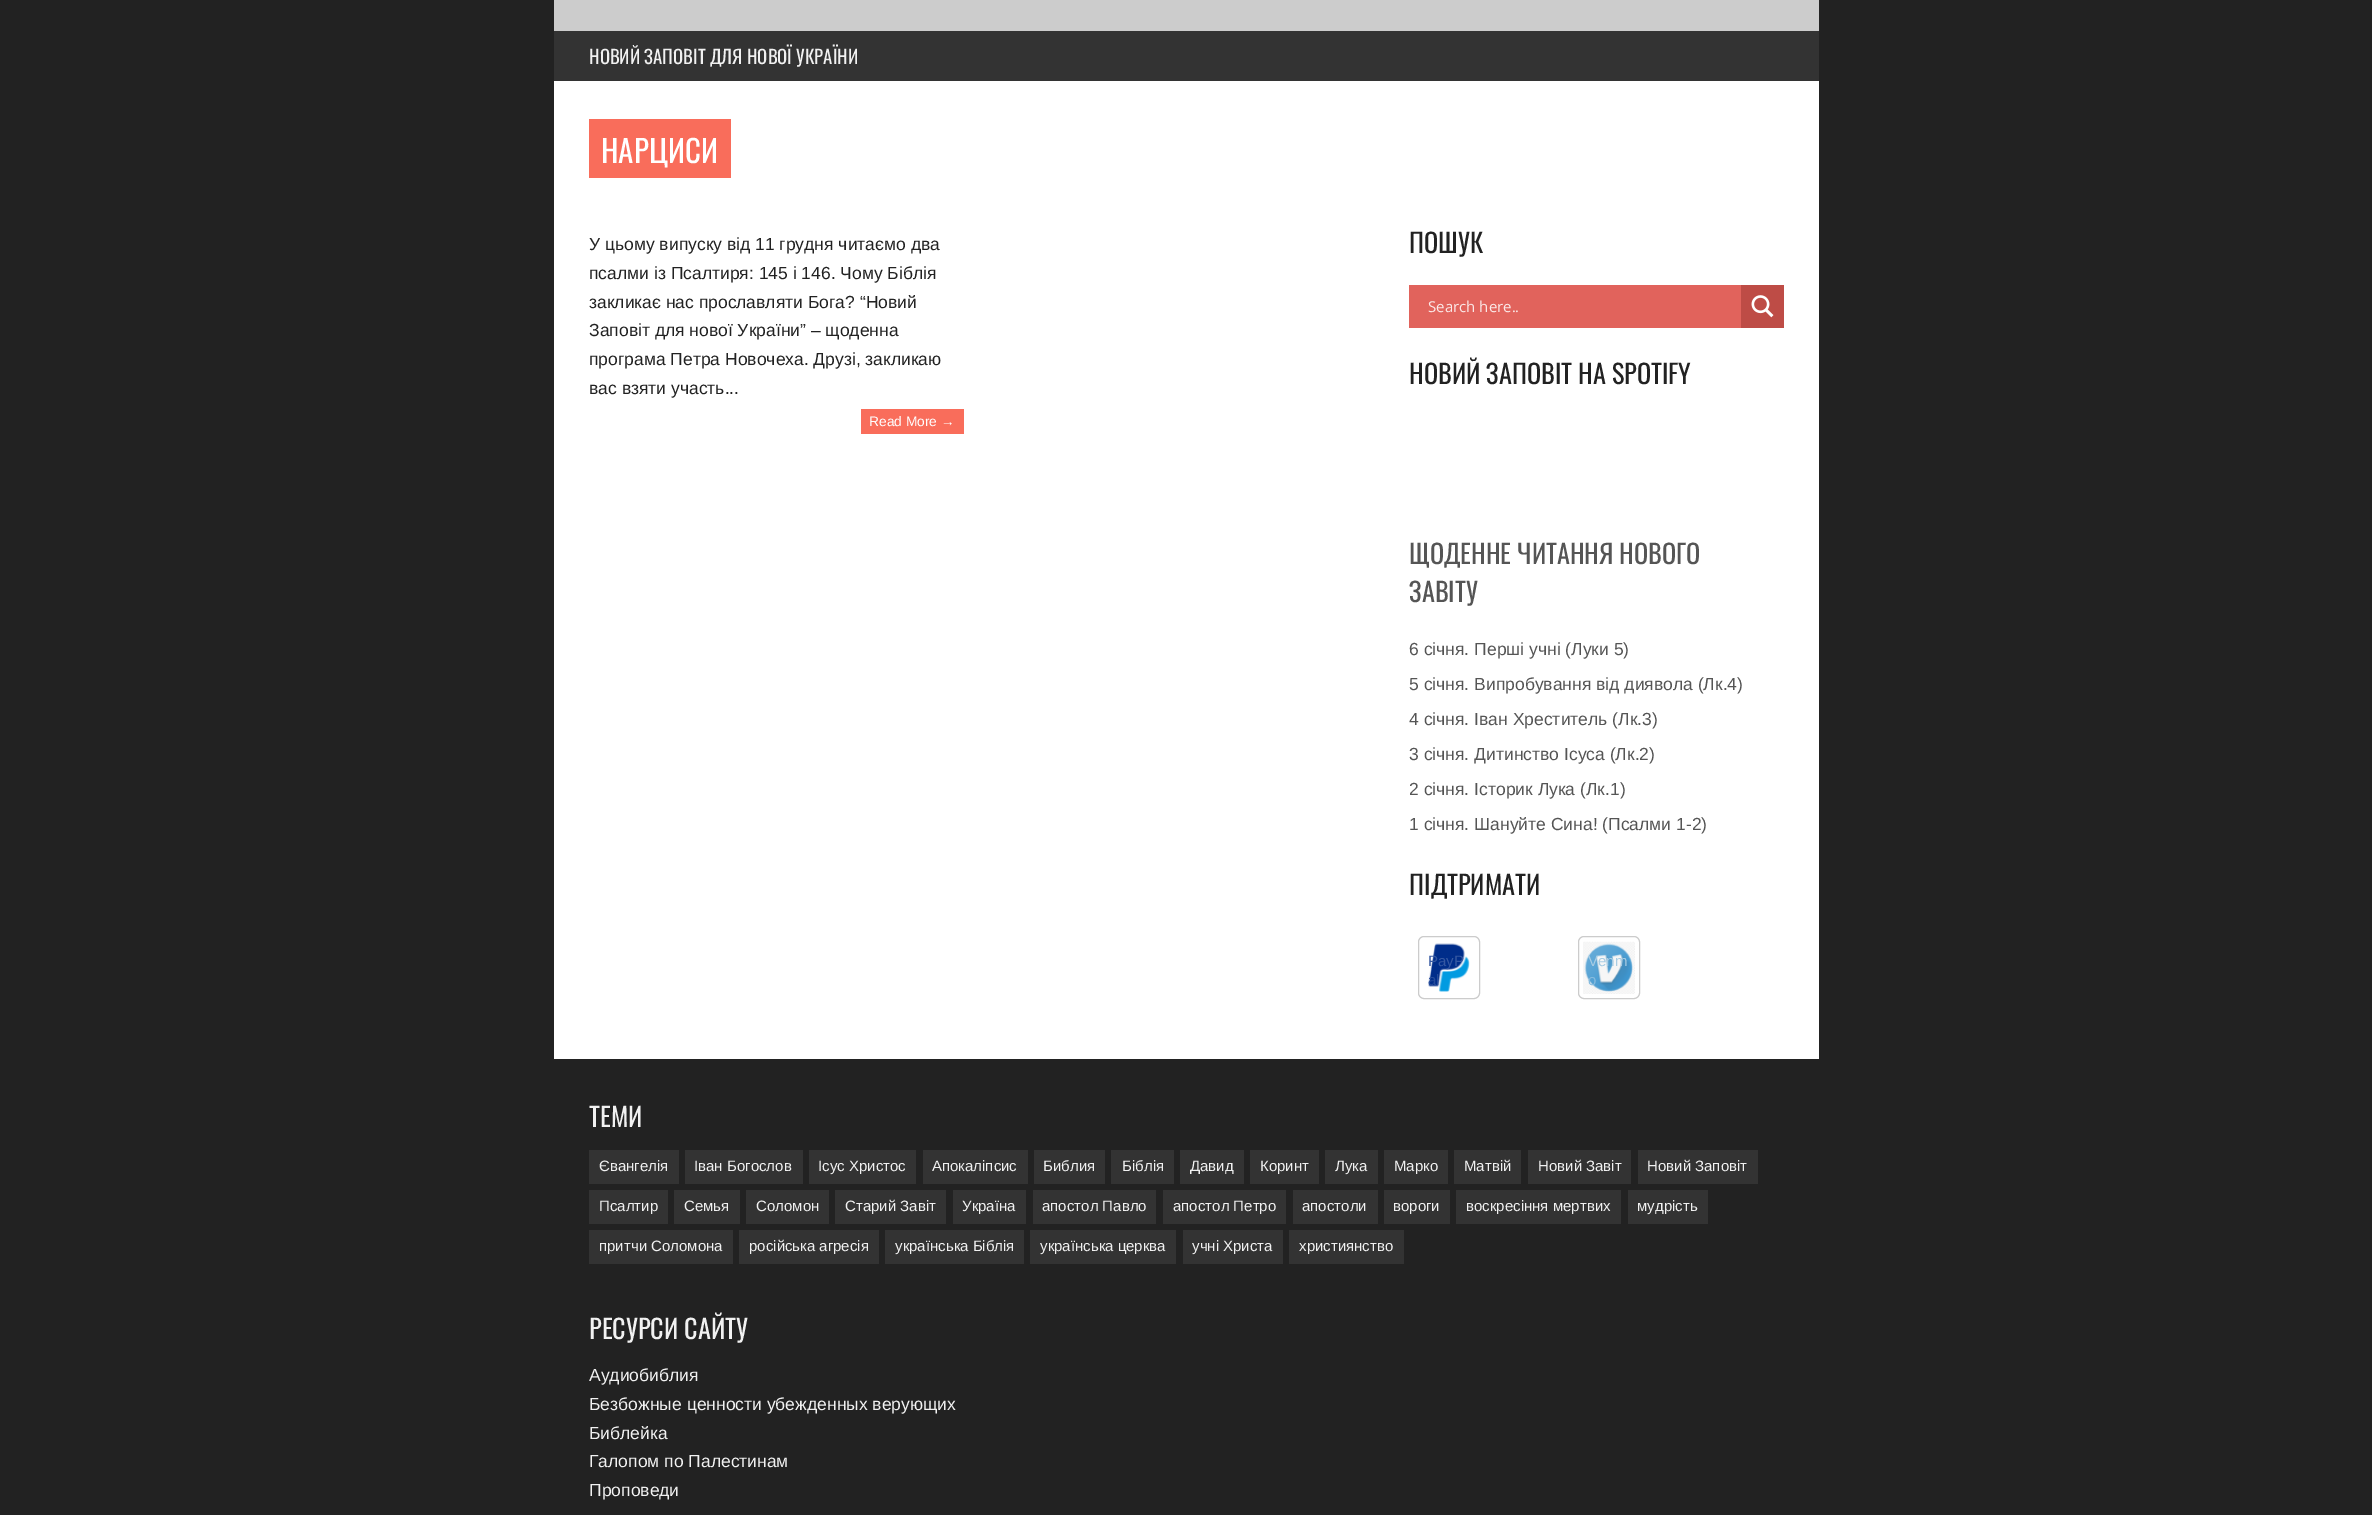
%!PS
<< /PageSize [2372 1515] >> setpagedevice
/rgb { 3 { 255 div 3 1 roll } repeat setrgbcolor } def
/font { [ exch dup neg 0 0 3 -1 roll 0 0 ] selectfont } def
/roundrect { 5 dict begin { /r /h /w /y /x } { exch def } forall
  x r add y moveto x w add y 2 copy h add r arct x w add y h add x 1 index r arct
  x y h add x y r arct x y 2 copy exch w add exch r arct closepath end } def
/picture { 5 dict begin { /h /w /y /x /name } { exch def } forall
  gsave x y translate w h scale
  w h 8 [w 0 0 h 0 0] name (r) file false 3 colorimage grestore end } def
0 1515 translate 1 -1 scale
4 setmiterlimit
34 34 34 rgb
0 0 2372 1515 rectfill
[
  [554 0 1265 31 204 204 204]
  [554 31 1265 50 51 51 51]
  [554 81 1265 978 255 255 255]
  [589 119 142 59 249 109 91]
  [861 409 103 25 249 109 91]
  [1409 285 332 43 225 99 92]
  [1741 285 43 43 190 76 70]
] { aload pop rgb rectfill } forall
(img/1.rgb) 1751 295 23 23 picture
204 204 204 rgb
1418.5 936.5 61 62 5.5 roundrect stroke
(img/2.rgb) 1428 943 42 49 picture
1578.5 936.5 61 62 5.5 roundrect stroke
(img/3.rgb) 1583 941 52 53 picture
[
  [589 1150 90 34 51 51 51]
  [685 1150 118 34 51 51 51]
  [809 1150 107 34 51 51 51]
  [923 1150 105 34 51 51 51]
  [1034 1150 71 34 51 51 51]
  [1111 1150 63 34 51 51 51]
  [1180 1150 64 34 51 51 51]
  [1250 1150 69 34 51 51 51]
  [1325 1150 53 34 51 51 51]
  [1384 1150 64 34 51 51 51]
  [1454 1150 67 34 51 51 51]
  [1528 1150 103 34 51 51 51]
  [1638 1150 120 34 51 51 51]
  [589 1190 79 34 51 51 51]
  [674 1190 66 34 51 51 51]
  [746 1190 83 34 51 51 51]
  [835 1190 111 34 51 51 51]
  [953 1190 73 34 51 51 51]
  [1033 1190 123 34 51 51 51]
  [1163 1190 123 34 51 51 51]
  [1293 1190 85 34 51 51 51]
  [1384 1190 66 34 51 51 51]
  [1456 1190 165 34 51 51 51]
  [1628 1190 80 34 51 51 51]
  [589 1230 144 34 51 51 51]
  [739 1230 140 34 51 51 51]
  [885 1230 139 34 51 51 51]
  [1030 1230 146 34 51 51 51]
  [1183 1230 100 34 51 51 51]
  [1289 1230 115 34 51 51 51]
] { aload pop rgb rectfill } forall
/Oswald-Regular 18.75 font
241 241 241 rgb
589 64 moveto (НОВИЙ ЗАПОВІТ ДЛЯ НОВОЇ УКРАЇНИ) show
/Oswald-Regular 31 font
255 255 255 rgb
601 163 moveto (НАРЦИСИ) show
/LiberationSans-Regular 17.5 font
34 34 34 rgb
[
  [(У цьому випуску від 11 грудня читаємо два) 589 250]
  [(псалми із Псалтиря: 145 і 146. Чому Біблія) 589 279]
  [(закликає нас прославляти Бога? “Новий) 589 308]
  [(Заповіт для нової України” – щоденна) 589 336]
  [(програма Петра Новочеха. Друзі, закликаю) 589 365]
  [(вас взяти участь...) 589 394]
] { aload pop moveto show } forall
/LiberationSans-Regular 13.75 font
255 255 255 rgb
869 426 moveto (Read More →) show
/Oswald-Regular 26.25 font
34 34 34 rgb
1409 253 moveto (ПОШУК) show
/OpenSans-Regular 15 font
251 232 231 rgb
1428 312 moveto (Search here..) show
/Oswald-Regular 26.25 font
34 34 34 rgb
1409 384 moveto (НОВИЙ ЗАПОВІТ НА SPOTIFY) show
85 85 85 rgb
1409 564 moveto (ЩОДЕННЕ ЧИТАННЯ НОВОГО) show
1409 602 moveto (ЗАВІТУ) show
/LiberationSans-Regular 17.5 font
[
  [(6 січня. Перші учні \(Луки 5\)) 1409 655]
  [(5 січня. Випробування від диявола \(Лк.4\)) 1409 690]
  [(4 січня. Іван Хреститель \(Лк.3\)) 1409 725]
  [(3 січня. Дитинство Ісуса \(Лк.2\)) 1409 760]
  [(2 січня. Історик Лука \(Лк.1\)) 1409 795]
  [(1 січня. Шануйте Сина! \(Псалми 1-2\)) 1409 830]
] { aload pop moveto show } forall
/Oswald-Regular 26.25 font
34 34 34 rgb
1409 895 moveto (ПІДТРИМАТИ) show
/LiberationSans-Regular 15 font
53 88 162 rgb
1428 966 moveto (PayP) show
38 76 155 rgb
1428 985 moveto (al) show
168 204 227 rgb
1588 966 moveto (Venm) show
134 187 222 rgb
1588 985 moveto (o) show
/Oswald-Regular 26.25 font
241 241 241 rgb
589 1127 moveto (ТЕМИ) show
/LiberationSans-Regular 15 font
[
  [(Євангелія) 599 1171]
  [(Іван Богослов) 694 1171]
  [(Ісус Христос) 818 1171]
  [(Апокаліпсис) 932 1171]
  [(Библия) 1043 1171]
  [(Біблія) 1122 1171]
  [(Давид) 1190 1171]
  [(Коринт) 1260 1171]
  [(Лука) 1335 1171]
  [(Марко) 1394 1171]
  [(Матвій) 1464 1171]
  [(Новий Завіт) 1538 1171]
  [(Новий Заповіт) 1647 1171]
  [(Псалтир) 599 1211]
  [(Семья) 684 1211]
  [(Соломон) 756 1211]
  [(Старий Завіт) 845 1211]
  [(Україна) 962 1211]
  [(апостол Павло) 1042 1211]
  [(апостол Петро) 1173 1211]
  [(апостоли) 1302 1211]
  [(вороги) 1393 1211]
  [(воскресіння мертвих) 1466 1211]
  [(мудрість) 1637 1211]
  [(притчи Соломона) 599 1251]
  [(російська агресія) 749 1251]
  [(українська Біблія) 895 1251]
  [(українська церква) 1040 1251]
  [(учні Христа) 1192 1251]
  [(християнство) 1299 1251]
] { aload pop moveto show } forall
/Oswald-Regular 26.25 font
589 1339 moveto (РЕСУРСИ САЙТУ) show
/LiberationSans-Regular 17.5 font
[
  [(Аудиобиблия) 589 1381]
  [(Безбожные ценности убежденных верующих) 589 1410]
  [(Библейка) 589 1439]
  [(Галопом по Палестинам) 589 1467]
  [(Проповеди) 589 1496]
] { aload pop moveto show } forall
showpage
